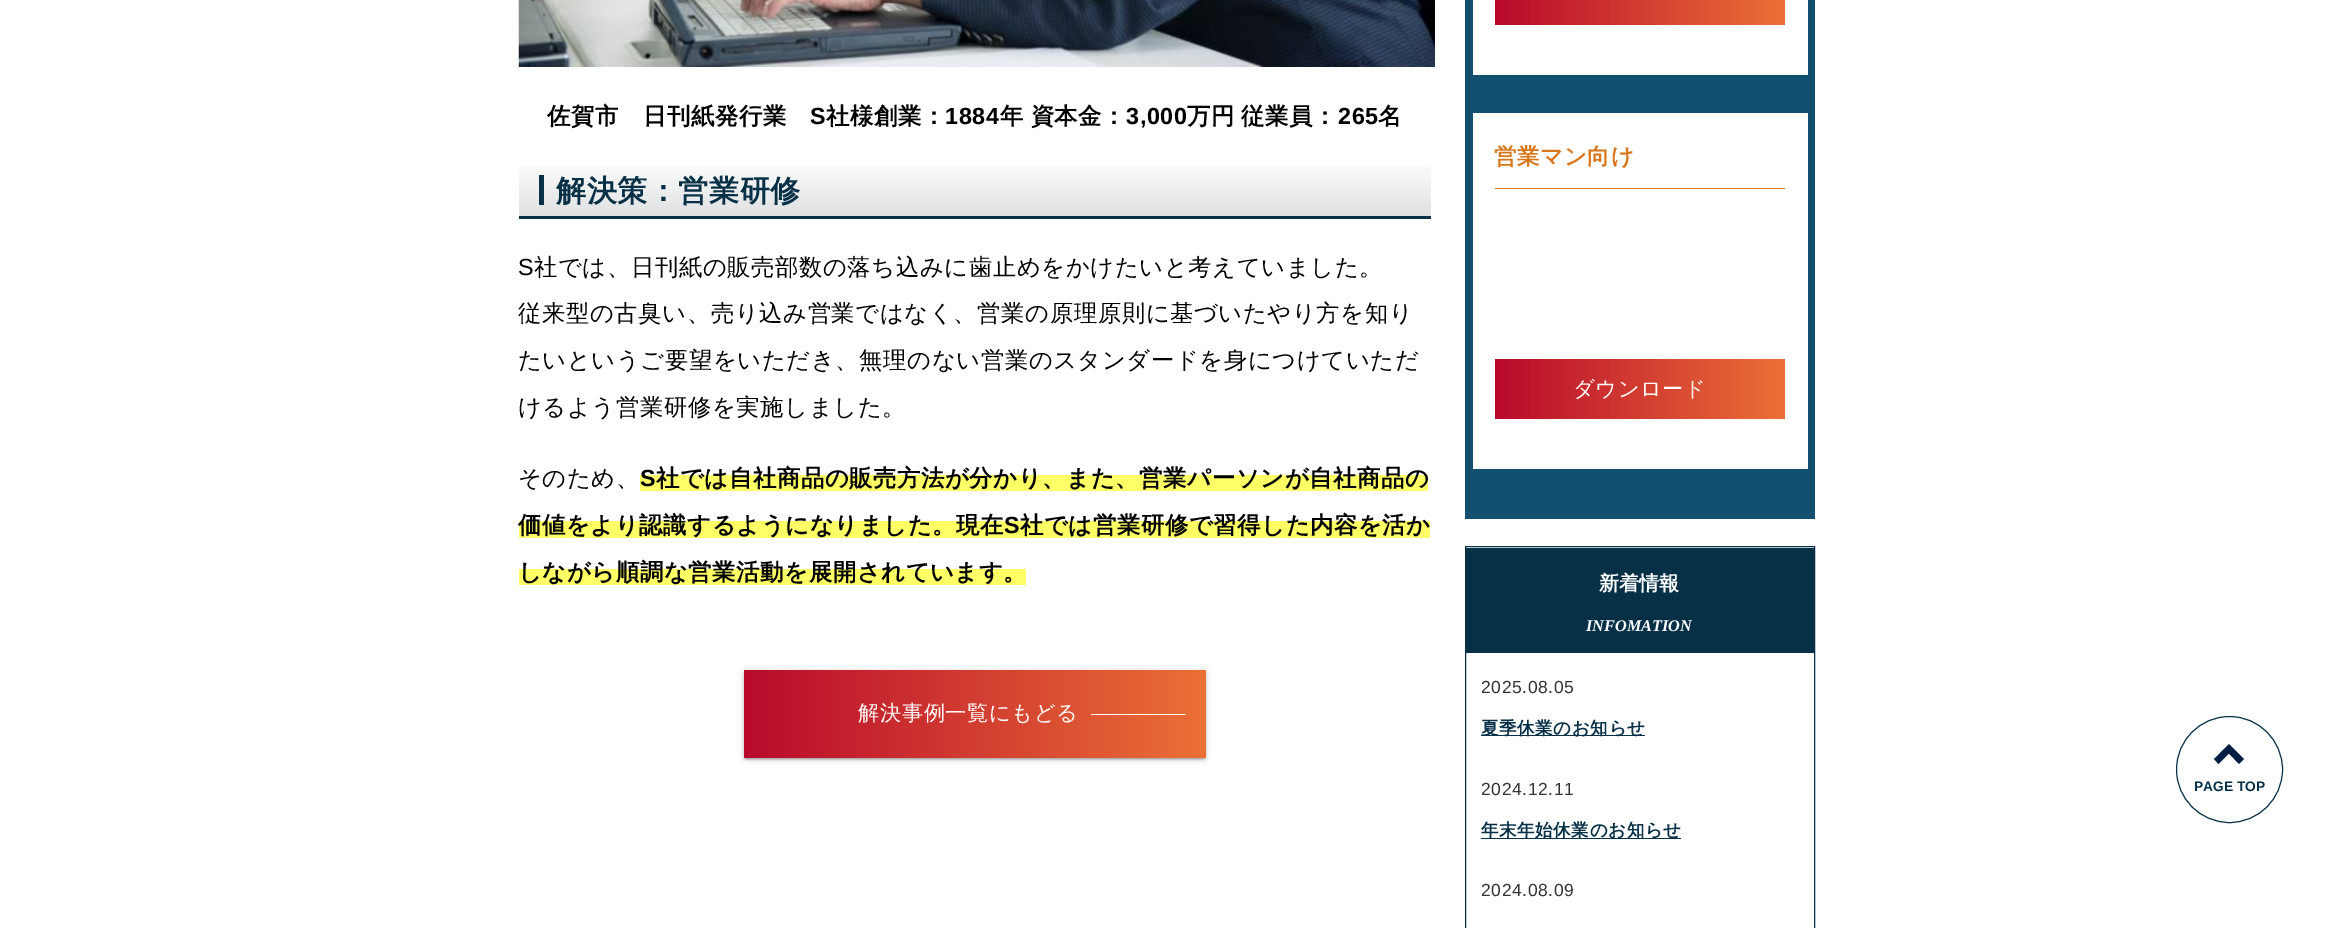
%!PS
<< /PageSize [2328 928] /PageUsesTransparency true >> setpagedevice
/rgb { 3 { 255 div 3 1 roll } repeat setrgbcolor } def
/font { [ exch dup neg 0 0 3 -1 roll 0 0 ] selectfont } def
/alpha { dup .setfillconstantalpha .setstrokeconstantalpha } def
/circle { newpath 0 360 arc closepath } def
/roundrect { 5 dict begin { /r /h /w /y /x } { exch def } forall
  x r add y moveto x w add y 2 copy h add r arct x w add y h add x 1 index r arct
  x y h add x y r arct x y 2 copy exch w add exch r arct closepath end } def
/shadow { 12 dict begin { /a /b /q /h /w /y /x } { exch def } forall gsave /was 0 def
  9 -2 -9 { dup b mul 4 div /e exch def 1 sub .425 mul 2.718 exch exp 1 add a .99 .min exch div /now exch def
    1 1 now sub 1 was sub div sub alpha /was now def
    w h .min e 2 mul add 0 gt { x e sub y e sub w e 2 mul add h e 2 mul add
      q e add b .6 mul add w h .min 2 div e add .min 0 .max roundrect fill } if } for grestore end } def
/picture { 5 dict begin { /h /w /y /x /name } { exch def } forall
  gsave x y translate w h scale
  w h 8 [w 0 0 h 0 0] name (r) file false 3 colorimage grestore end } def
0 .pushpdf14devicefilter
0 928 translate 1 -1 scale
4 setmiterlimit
255 255 255 rgb
0 0 2328 928 rectfill
(img/1.rgb) 518 0 917 67 picture
gsave 519 165 moveto 1431 165 lineto 1431 216 lineto 519 216 lineto closepath clip newpath
<< /ShadingType 2 /ColorSpace /DeviceRGB /Coords [975 216 975 165] /Extend [true true] /Function << /FunctionType 2 /Domain [0 1] /C0 [0.878 0.882 0.886] /C1 [0.984 0.984 0.984] /N 1 >> >> shfill grestore
[
  [519 216 912 3 8 49 71]
  [539 175 5 30 8 49 71]
  [640 475 788 16 255 255 102]
  [519 521 911 17 255 255 102]
  [519 569 507 16 255 255 102]
] { aload pop rgb rectfill } forall
0 0 0 rgb
744 671 462 88 2.5 3 0.2 shadow
746 676 458 83 0 0.5 0.12 shadow
744 673 462 87 2.5 1 0.14 shadow
gsave 744 670 462 88 2.5 roundrect clip newpath
<< /ShadingType 2 /ColorSpace /DeviceRGB /Coords [744 714 1206 714] /Extend [true true] /Function << /FunctionType 2 /Domain [0 1] /C0 [0.725 0.039 0.173] /C1 [0.922 0.439 0.212] /N 1 >> >> shfill grestore
[
  [1091 714 95 1 255 255 255]
  [1465 0 350 519 19 79 110]
  [1473 0 335 75 255 255 255]
] { aload pop rgb rectfill } forall
gsave 1495 0 moveto 1785 0 lineto 1785 25 lineto 1495 25 lineto closepath clip newpath
<< /ShadingType 2 /ColorSpace /DeviceRGB /Coords [1495 -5 1785 -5] /Extend [true true] /Function << /FunctionType 2 /Domain [0 1] /C0 [0.725 0.039 0.173] /C1 [0.922 0.439 0.212] /N 1 >> >> shfill grestore
1473 113 335 356 rectfill
215 119 26 rgb
1495 188 290 1 rectfill
gsave 1495 359 moveto 1785 359 lineto 1785 419 lineto 1495 419 lineto closepath clip newpath
<< /ShadingType 2 /ColorSpace /DeviceRGB /Coords [1495 389 1785 389] /Extend [true true] /Function << /FunctionType 2 /Domain [0 1] /C0 [0.725 0.039 0.173] /C1 [0.922 0.439 0.212] /N 1 >> >> shfill grestore
6 48 70 rgb
1465.5 546.5 349 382 rectstroke
[
  [1466 548 348 105 6 48 70]
  [1481 735 164 1 6 48 70]
  [1481 838 200 1 6 48 70]
] { aload pop rgb rectfill } forall
8 49 71 rgb
2229.5 769.5 53 circle stroke
0 31 64 rgb
2214 759 moveto 2218.5 764 lineto 2229 753.5 lineto 2239 764 lineto 2244 759 lineto 2229 744 lineto closepath eofill
/WenQuanYiZenHei-Bold 23.35 font
0 0 0 rgb
547 124 moveto 0.6 0 (佐賀市　日刊紙発行業) ashow
/LiberationSans-Bold 23.35 font
810 124 moveto 0.6 0 (S) ashow
/WenQuanYiZenHei-Bold 23.35 font
826 124 moveto 0.6 0 (社様創業：) ashow
/LiberationSans-Bold 23.35 font
945 124 moveto 0.6 0 (1884) ashow
/WenQuanYiZenHei-Bold 23.35 font
1000 124 moveto -1 0 32 0.6 0 (年 資本金：) awidthshow
/LiberationSans-Bold 23.35 font
1126 124 moveto 0.6 0 (3,000) ashow
/WenQuanYiZenHei-Bold 23.35 font
1187 124 moveto -1 0 32 0.6 0 (万円 従業員：) awidthshow
/LiberationSans-Bold 23.35 font
1338 124 moveto 0.6 0 (265) ashow
/WenQuanYiZenHei-Bold 23.35 font
1378 124 moveto 0.6 0 (名) ashow
/WenQuanYiZenHei-Bold 30 font
6 48 70 rgb
556 201 moveto 0.6 0 (解決策：営業研修) ashow
/LiberationSans-Regular 23.35 font
0 0 0 rgb
518 275 moveto 0.6 0 (S) ashow
/WenQuanYiZenHei-Medium 23.35 font
534 275 moveto 0.6 0 (社では、日刊紙の販売部数の落ち込みに歯止めをかけたいと考えていました。) ashow
518 321 moveto 0.6 0 (従来型の古臭い、売り込み営業ではなく、営業の原理原則に基づいたやり方を知り) ashow
518 368 moveto 0.6 0 (たいというご要望をいただき、無理のない営業のスタンダードを身につけていただ) ashow
518 415 moveto 0.6 0 (けるよう営業研修を実施しました。) ashow
518 486 moveto 0.6 0 (そのため、) ashow
/LiberationSans-Bold 23.35 font
640 486 moveto 0.6 0 (S) ashow
/WenQuanYiZenHei-Bold 23.35 font
656 486 moveto 0.6 0 (社では自社商品の販売方法が分かり、また、営業パーソンが自社商品の) ashow
518 533 moveto 0.6 0 (価値をより認識するようになりました。現在) ashow
/LiberationSans-Bold 23.35 font
1004 533 moveto 0.6 0 (S) ashow
/WenQuanYiZenHei-Bold 23.35 font
1020 533 moveto 0.6 0 (社では営業研修で習得した内容を活か) ashow
518 580 moveto 0.6 0 (しながら順調な営業活動を展開されています。) ashow
/WenQuanYiZenHei-Medium 21.25 font
255 255 255 rgb
858 720 moveto 0.6 0 (解決事例一覧にもどる) ashow
/WenQuanYiZenHei-Bold 22.5 font
215 119 26 rgb
1494 164 moveto 0.6 0 (営業マン向け) ashow
/WenQuanYiZenHei-Medium 21.25 font
255 255 255 rgb
1573 396 moveto 0.6 0 (ダウンロード) ashow
/WenQuanYiZenHei-Bold 20 font
1599 590 moveto (新着情報) show
/LiberationSerif-BoldItalic 16.25 font
1586 631 moveto (INFOMATION) show
/LiberationSans-Regular 17.5 font
51 51 51 rgb
1481 693 moveto 0.6 0 (2025.08.05) ashow
/WenQuanYiZenHei-Bold 17.5 font
6 48 70 rgb
1481 734 moveto 0.6 0 (夏季休業のお知らせ) ashow
/LiberationSans-Regular 17.5 font
51 51 51 rgb
1481 795 moveto 0.6 0 (2024.12.11) ashow
/WenQuanYiZenHei-Bold 17.5 font
6 48 70 rgb
1481 836 moveto 0.6 0 (年末年始休業のお知らせ) ashow
/LiberationSans-Regular 17.5 font
51 51 51 rgb
1481 896 moveto 0.6 0 (2024.08.09) ashow
/LiberationSans-Bold 13.75 font
6 48 70 rgb
2194 791 moveto (PAGE TOP) show
.poppdf14devicefilter showpage
